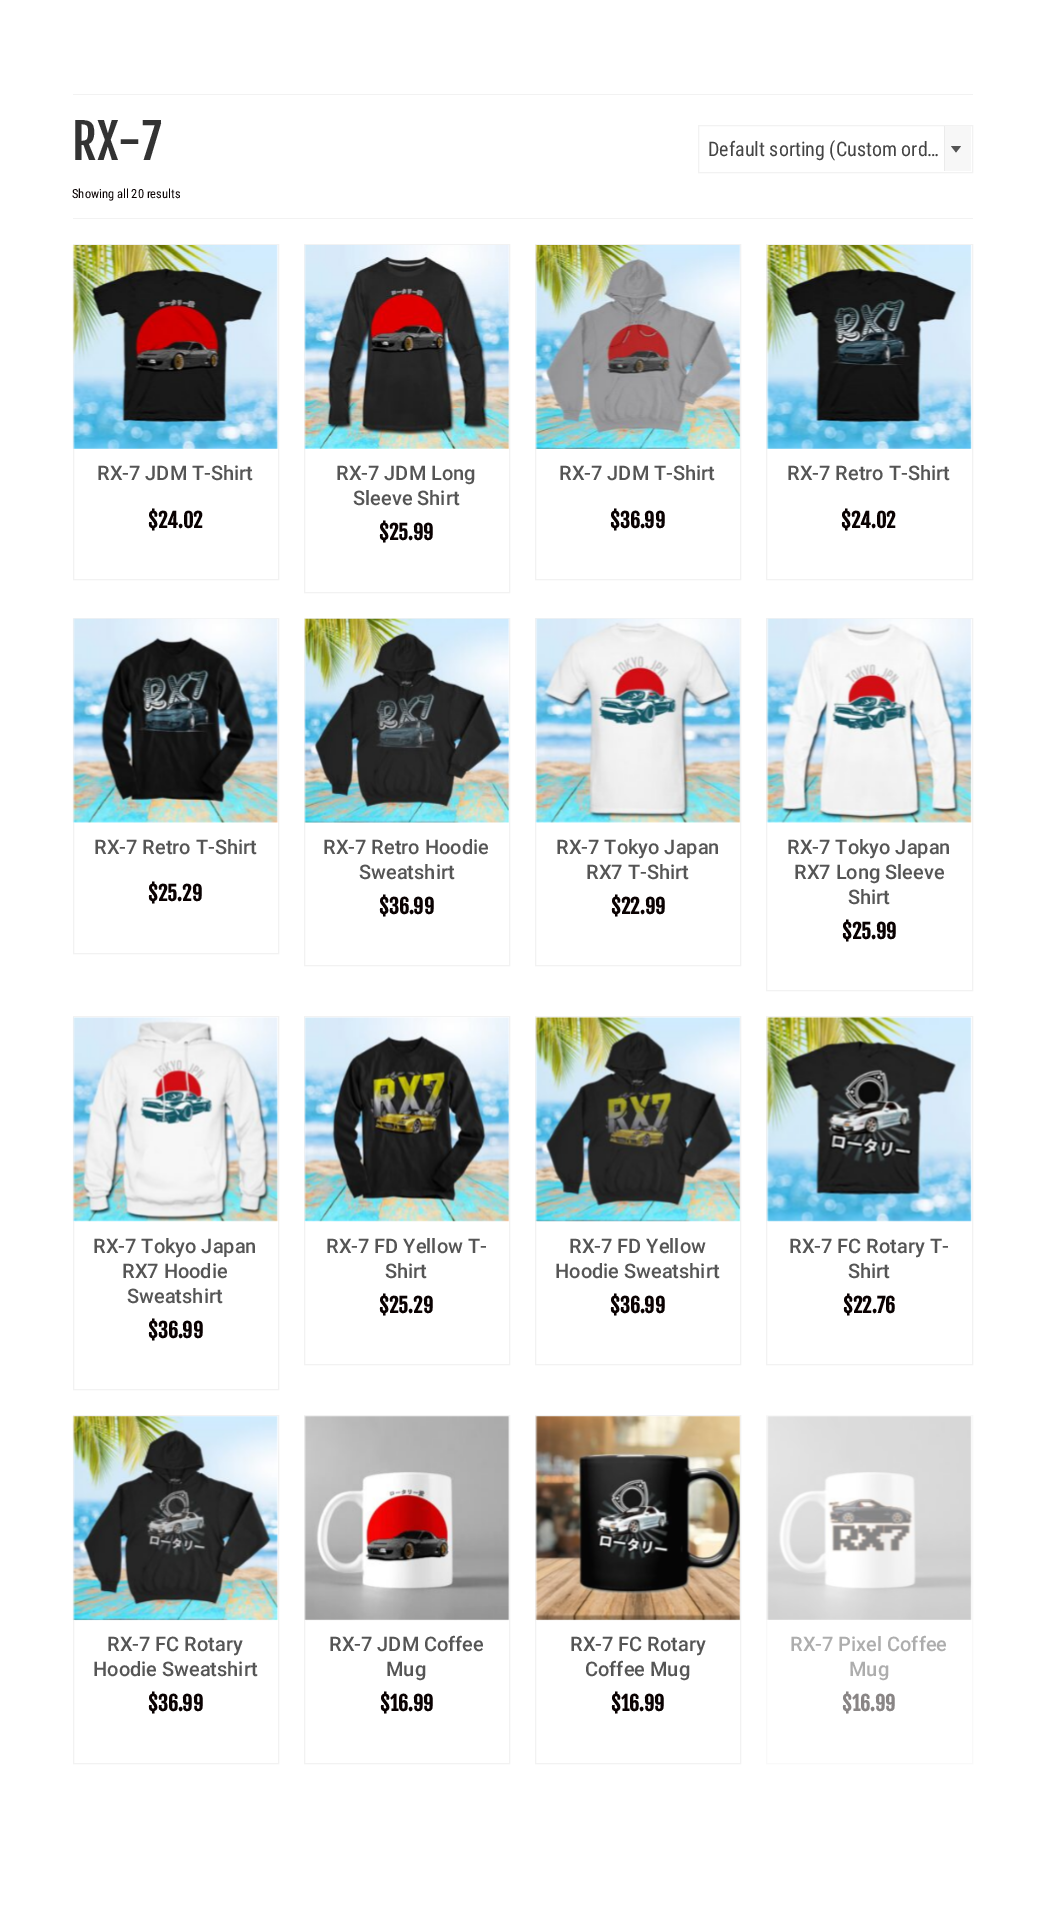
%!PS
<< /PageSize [1043 1918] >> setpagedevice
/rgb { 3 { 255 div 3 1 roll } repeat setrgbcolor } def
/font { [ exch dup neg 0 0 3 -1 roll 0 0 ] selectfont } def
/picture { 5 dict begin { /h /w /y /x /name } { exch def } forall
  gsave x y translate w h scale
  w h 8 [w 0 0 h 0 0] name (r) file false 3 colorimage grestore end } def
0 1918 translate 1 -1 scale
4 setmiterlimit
255 255 255 rgb
0 0 1043 1918 rectfill
242 242 242 rgb
73 94 900 1 rectfill
73 218 900 1 rectfill
698.5 125.5 274 47 rectstroke
247 247 247 rgb
945 126 26 45 rectfill
235 235 235 rgb
944 126 1 45 rectfill
85 85 85 rgb
951 146 moveto 961 146 lineto 956 152.5 lineto closepath fill
242 242 242 rgb
73.5 244.5 205 335 rectstroke
(img/1.rgb) 72 245 206 204 picture
304.5 244.5 205 348 rectstroke
(img/2.rgb) 304 245 205 204 picture
535.5 244.5 205 335 rectstroke
(img/3.rgb) 535 245 206 204 picture
766.5 244.5 206 335 rectstroke
(img/4.rgb) 766 245 206 204 picture
73.5 618.5 205 335 rectstroke
(img/5.rgb) 72 618 206 205 picture
304.5 618.5 205 347 rectstroke
(img/6.rgb) 304 618 205 205 picture
535.5 618.5 205 347 rectstroke
(img/7.rgb) 535 618 206 205 picture
766.5 618.5 206 372 rectstroke
(img/8.rgb) 766 618 206 205 picture
73.5 1016.5 205 373 rectstroke
(img/9.rgb) 72 1017 206 205 picture
304.5 1016.5 205 348 rectstroke
(img/10.rgb) 304 1017 205 205 picture
535.5 1016.5 205 348 rectstroke
(img/11.rgb) 535 1017 206 205 picture
766.5 1016.5 206 348 rectstroke
(img/12.rgb) 766 1017 206 205 picture
73.5 1415.5 205 348 rectstroke
(img/13.rgb) 72 1416 206 205 picture
304.5 1415.5 205 348 rectstroke
(img/14.rgb) 304 1416 205 205 picture
535.5 1415.5 205 348 rectstroke
(img/15.rgb) 535 1416 206 205 picture
249 249 249 rgb
766.5 1415.5 206 348 rectstroke
(img/16.rgb) 766 1416 206 204 picture
/FjallaOne-Regular 48 font
51 51 51 rgb
72 160 moveto (RX-7) show
/RobotoCondensed-Regular 12.5 font
10 2 2 rgb
72 198 moveto (Showing all 20 results) show
/RobotoCondensed-Regular 20 font
68 68 68 rgb
708 156 moveto (Default sorting \(Custom ord…) show
/Roboto-Medium 20 font
85 85 85 rgb
97 480 moveto (RX-7 JDM T-Shirt) show
/FjallaOne-Bold 20 font
10 2 2 rgb
148 528 moveto ($24.02) show
/Roboto-Medium 20 font
85 85 85 rgb
336 480 moveto (RX-7 JDM Long) show
353 505 moveto (Sleeve Shirt) show
/FjallaOne-Bold 20 font
10 2 2 rgb
379 540 moveto ($25.99) show
/Roboto-Medium 20 font
85 85 85 rgb
559 480 moveto (RX-7 JDM T-Shirt) show
/FjallaOne-Bold 20 font
10 2 2 rgb
610 528 moveto ($36.99) show
/Roboto-Medium 20 font
85 85 85 rgb
787 480 moveto (RX-7 Retro T-Shirt) show
/FjallaOne-Bold 20 font
10 2 2 rgb
841 528 moveto ($24.02) show
/Roboto-Medium 20 font
85 85 85 rgb
94 854 moveto (RX-7 Retro T-Shirt) show
/FjallaOne-Bold 20 font
10 2 2 rgb
148 901 moveto ($25.29) show
/Roboto-Medium 20 font
85 85 85 rgb
323 854 moveto (RX-7 Retro Hoodie) show
359 879 moveto (Sweatshirt) show
/FjallaOne-Bold 20 font
10 2 2 rgb
379 914 moveto ($36.99) show
/Roboto-Medium 20 font
85 85 85 rgb
556 854 moveto (RX-7 Tokyo Japan) show
586 879 moveto (RX7 T-Shirt) show
/FjallaOne-Bold 20 font
10 2 2 rgb
611 914 moveto ($22.99) show
/Roboto-Medium 20 font
85 85 85 rgb
[
  [(RX-7 Tokyo Japan) 787 854]
  [(RX7 Long Sleeve) 794 879]
  [(Shirt) 848 904]
] { aload pop moveto show } forall
/FjallaOne-Bold 20 font
10 2 2 rgb
842 939 moveto ($25.99) show
/Roboto-Medium 20 font
85 85 85 rgb
[
  [(RX-7 Tokyo Japan) 93 1253]
  [(RX7 Hoodie) 122 1278]
  [(Sweatshirt) 127 1303]
] { aload pop moveto show } forall
/FjallaOne-Bold 20 font
10 2 2 rgb
148 1338 moveto ($36.99) show
/Roboto-Medium 20 font
85 85 85 rgb
326 1253 moveto (RX-7 FD Yellow T-) show
385 1278 moveto (Shirt) show
/FjallaOne-Bold 20 font
10 2 2 rgb
379 1313 moveto ($25.29) show
/Roboto-Medium 20 font
85 85 85 rgb
569 1253 moveto (RX-7 FD Yellow) show
555 1278 moveto (Hoodie Sweatshirt) show
/FjallaOne-Bold 20 font
10 2 2 rgb
610 1313 moveto ($36.99) show
/Roboto-Medium 20 font
85 85 85 rgb
789 1253 moveto (RX-7 FC Rotary T-) show
848 1278 moveto (Shirt) show
/FjallaOne-Bold 20 font
10 2 2 rgb
843 1313 moveto ($22.76) show
/Roboto-Medium 20 font
85 85 85 rgb
107 1651 moveto (RX-7 FC Rotary) show
93 1676 moveto (Hoodie Sweatshirt) show
/FjallaOne-Bold 20 font
10 2 2 rgb
148 1711 moveto ($36.99) show
/Roboto-Medium 20 font
85 85 85 rgb
329 1651 moveto (RX-7 JDM Coffee) show
386 1676 moveto (Mug) show
/FjallaOne-Bold 20 font
10 2 2 rgb
380 1711 moveto ($16.99) show
/Roboto-Medium 20 font
85 85 85 rgb
570 1651 moveto (RX-7 FC Rotary) show
585 1676 moveto (Coffee Mug) show
/FjallaOne-Bold 20 font
10 2 2 rgb
611 1711 moveto ($16.99) show
/Roboto-Medium 20 font
173 173 173 rgb
790 1651 moveto (RX-7 Pixel Coffee) show
849 1676 moveto (Mug) show
/FjallaOne-Bold 20 font
137 133 133 rgb
842 1711 moveto ($16.99) show
showpage
